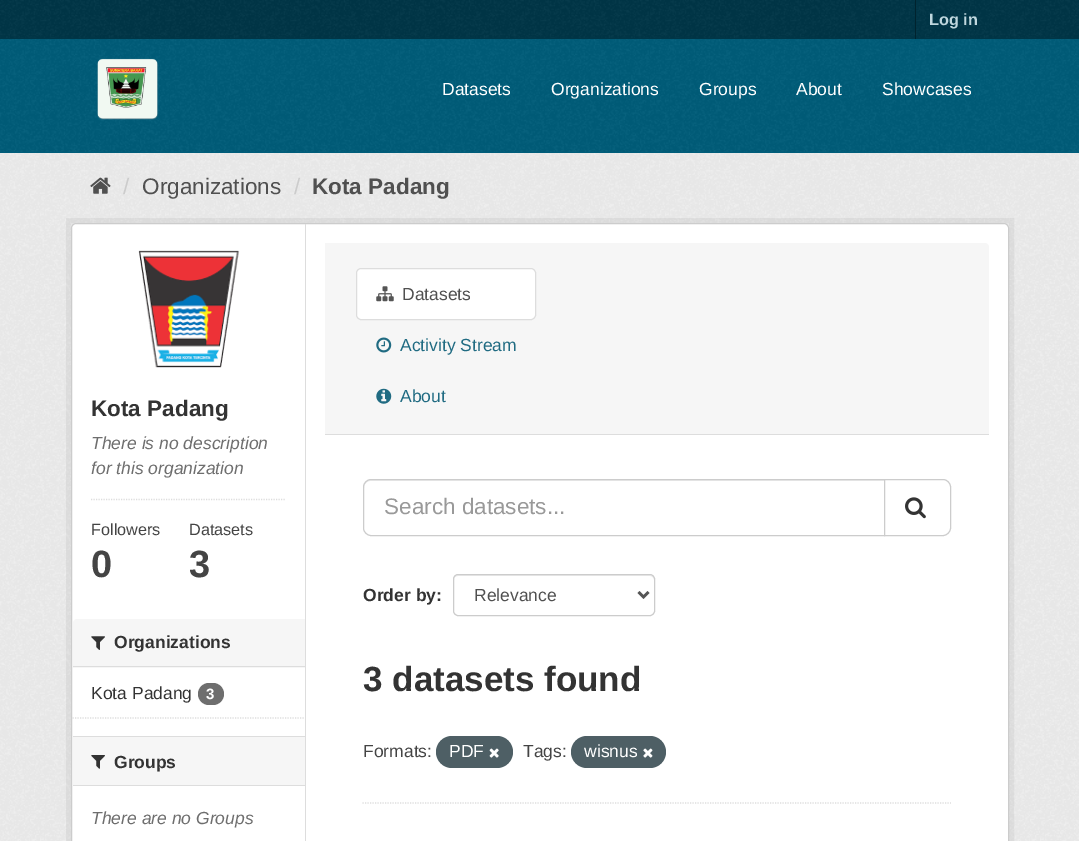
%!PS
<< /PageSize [1079 841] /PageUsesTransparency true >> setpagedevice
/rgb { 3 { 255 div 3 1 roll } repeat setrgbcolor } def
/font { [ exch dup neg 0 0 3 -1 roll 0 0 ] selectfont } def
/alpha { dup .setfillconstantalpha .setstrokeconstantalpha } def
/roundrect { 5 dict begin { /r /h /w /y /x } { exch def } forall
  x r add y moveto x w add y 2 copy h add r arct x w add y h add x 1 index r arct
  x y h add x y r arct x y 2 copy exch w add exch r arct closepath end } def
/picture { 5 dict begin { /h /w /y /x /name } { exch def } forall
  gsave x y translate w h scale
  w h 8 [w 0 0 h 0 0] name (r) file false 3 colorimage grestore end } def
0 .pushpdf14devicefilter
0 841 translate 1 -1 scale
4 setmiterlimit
0 54 71 rgb
0 0 1079 841 rectfill
(img/1.rgb) 0 0 1079 38 picture
0 35 46 rgb
915 0 1 39 rectfill
0 93 122 rgb
0 39 1079 114 rectfill
(img/2.rgb) 0 39 1079 113 picture
(img/3.rgb) 97 58 62 62 picture
238 238 238 rgb
0 153 1079 688 rectfill
(img/4.rgb) 0 153 1079 688 picture
(img/5.rgb) 90 177 21 17 picture
0.05 alpha
0 0 0 rgb
5 setlinewidth
68.5 220.5 943 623 rectstroke
1 alpha
255 255 255 rgb
71.5 223.5 937 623 4.5 roundrect gsave fill grestore
204 204 204 rgb
1 setlinewidth
stroke
(img/6.rgb) 138 250 102 118 picture
221 221 221 rgb
1.2 setlinewidth
[1.25 1.25] 0 setdash
91 499.5 moveto 286 499.5 lineto stroke
246 246 246 rgb
77 619 moveto 305 619 lineto 305 668 lineto 73 668 lineto 73 623 lineto 73 621 75 619 77 619 curveto closepath fill
221 221 221 rgb
73 666 232 1 rectfill
(img/7.rgb) 91 636 14 14 picture
110 110 110 rgb
198 683 26 22 11 roundrect fill
221 221 221 rgb
72.5 718 moveto 305 718 lineto stroke
[
  [73 737 232 48 246 246 246]
  [73 736 232 1 221 221 221]
  [73 785 232 1 221 221 221]
] { aload pop rgb rectfill } forall
(img/8.rgb) 91 755 14 14 picture
305 224 1 617 rectfill
246 246 246 rgb
325 243 moveto 985 243 lineto 987 243 989 245 989 247 curveto 989 435 lineto 325 435 lineto closepath fill
221 221 221 rgb
325 434 664 1 rectfill
255 255 255 rgb
356.5 268.5 179 51 4.5 roundrect gsave fill grestore
221 221 221 rgb
1 setlinewidth
[] 0 setdash
stroke
(img/9.rgb) 376 286 18 16 picture
(img/10.rgb) 376 337 16 16 picture
(img/11.rgb) 376 388 16 16 picture
1.2 setlinewidth
[1.25 1.25] 0 setdash
362.5 803 moveto 951 803 lineto stroke
236 236 236 rgb
370 481 moveto 884 481 lineto 884 480 lineto 370 480 lineto 367 480 364 483 364 486 curveto 364 488 lineto 364 484 367 481 370 481 curveto closepath fill
204 204 204 rgb
1 setlinewidth
[] 0 setdash
371 479.5 moveto 884.5 479.5 lineto 884.5 535.5 lineto 371 535.5 lineto 367 535.5 363.5 532 363.5 528 curveto 363.5 487 lineto 363.5 483 367 479.5 371 479.5 curveto closepath stroke
255 255 255 rgb
884.5 479.5 moveto 943 479.5 lineto 947 479.5 950.5 483 950.5 487 curveto 950.5 528 lineto 950.5 532 947 535.5 943 535.5 curveto 884.5 535.5 lineto closepath gsave fill grestore
204 204 204 rgb
stroke
(img/12.rgb) 905 497 21 22 picture
236 236 236 rgb
458 576 moveto 650 576 lineto 652 576 654 578 654 580 curveto 654 579 lineto 654 577 652 575 650 575 curveto 458 575 lineto 456 575 454 577 454 579 curveto 454 580 lineto 454 578 455 576 458 576 curveto closepath fill
204 204 204 rgb
453.5 574.5 201 41 4.5 roundrect stroke
85 85 85 rgb
2.5 setlinewidth
638.5 592 moveto 643.5 597 lineto 648.5 592 lineto stroke
78 95 101 rgb
436 736 77 32 16 roundrect fill
(img/13.rgb) 489 748 10 10 picture
571 736 95 32 16 roundrect fill
(img/14.rgb) 643 748 10 10 picture
/LiberationSans-Bold 16.25 font
191 215 222 rgb
929 25 moveto (Log in) show
/LiberationSans-Regular 17.5 font
255 255 255 rgb
[
  [(Datasets) 442 95]
  [(Organizations) 551 95]
  [(Groups) 699 95]
  [(About) 796 95]
  [(Showcases) 882 95]
] { aload pop moveto show } forall
/LiberationSans-Regular 22.5 font
204 204 204 rgb
123 194 moveto (/) show
80 80 80 rgb
142 194 moveto (Organizations) show
204 204 204 rgb
294 194 moveto (/) show
/LiberationSans-Bold 22.5 font
80 80 80 rgb
312 194 moveto (Kota Padang) show
51 51 51 rgb
91 416 moveto (Kota Padang) show
/LiberationSans-Italic 17.5 font
110 110 110 rgb
91 449 moveto (There is no description) show
91 474 moveto (for this organization) show
/LiberationSans-Regular 16.25 font
68 68 68 rgb
91 535 moveto (Followers) show
/LiberationSans-Bold 38 font
91 577 moveto (0) show
/LiberationSans-Regular 16.25 font
189 535 moveto (Datasets) show
/LiberationSans-Bold 38 font
189 577 moveto (3) show
/LiberationSans-Bold 17.5 font
51 51 51 rgb
114 648 moveto (Organizations) show
/LiberationSans-Regular 17.5 font
91 699 moveto (Kota Padang) show
/LiberationSans-Bold 15 font
255 255 255 rgb
206 699 moveto (3) show
/LiberationSans-Bold 17.5 font
51 51 51 rgb
114 768 moveto (Groups) show
/LiberationSans-Italic 17.5 font
110 110 110 rgb
91 824 moveto (There are no Groups) show
/LiberationSans-Regular 17.5 font
80 80 80 rgb
402 300 moveto (Datasets) show
32 107 130 rgb
400 351 moveto (Activity Stream) show
400 402 moveto (About) show
/LiberationSans-Regular 22.5 font
153 153 153 rgb
384 514 moveto (Search datasets...) show
/LiberationSans-Bold 17.5 font
51 51 51 rgb
363 601 moveto (Order by:) show
/LiberationSans-Regular 17.5 font
80 80 80 rgb
474 601 moveto (Relevance) show
/LiberationSans-Bold 35 font
51 51 51 rgb
363 691 moveto (3 datasets found) show
/LiberationSans-Regular 17.5 font
68 68 68 rgb
363 757 moveto (Formats:) show
255 255 255 rgb
449 757 moveto (PDF) show
68 68 68 rgb
523 757 moveto (Tags:) show
255 255 255 rgb
584 757 moveto (wisnus) show
.poppdf14devicefilter showpage
